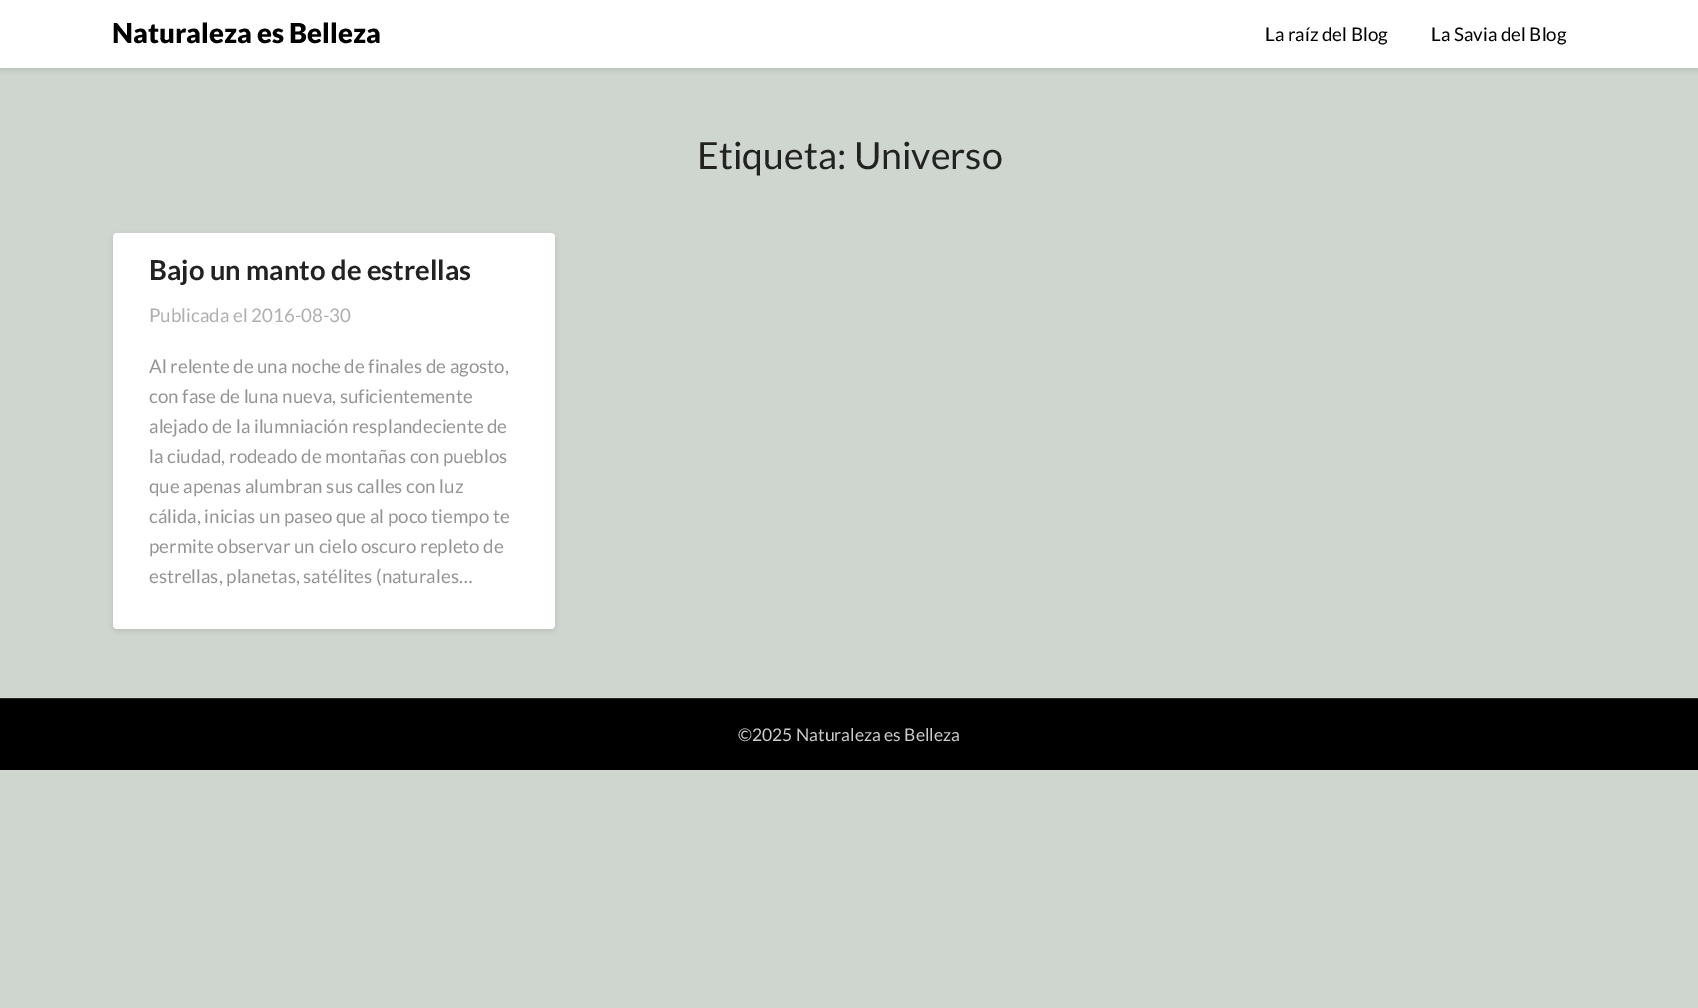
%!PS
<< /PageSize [1698 1008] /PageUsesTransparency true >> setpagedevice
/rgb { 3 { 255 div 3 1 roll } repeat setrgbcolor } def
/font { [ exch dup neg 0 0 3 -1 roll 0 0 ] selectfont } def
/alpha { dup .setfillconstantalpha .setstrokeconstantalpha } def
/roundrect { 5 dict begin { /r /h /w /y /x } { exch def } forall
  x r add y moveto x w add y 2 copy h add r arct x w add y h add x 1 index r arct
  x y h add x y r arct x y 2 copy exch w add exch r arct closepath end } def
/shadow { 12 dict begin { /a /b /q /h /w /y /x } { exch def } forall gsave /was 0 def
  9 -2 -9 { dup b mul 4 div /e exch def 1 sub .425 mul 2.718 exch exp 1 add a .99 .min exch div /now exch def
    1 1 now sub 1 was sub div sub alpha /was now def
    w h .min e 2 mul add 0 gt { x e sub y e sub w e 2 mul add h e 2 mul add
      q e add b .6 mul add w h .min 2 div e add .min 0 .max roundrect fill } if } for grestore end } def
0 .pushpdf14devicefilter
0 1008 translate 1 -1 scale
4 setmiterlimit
207 214 207 rgb
0 0 1698 1008 rectfill
0 0 0 rgb
0 3 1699 67 0 2.5 0.1 shadow
255 255 255 rgb
0 0 1698 68 rectfill
0 0 0 rgb
113 235 442 396 4 2.5 0.1 shadow
255 255 255 rgb
113 233 442 396 4 roundrect fill
0 0 0 rgb
0 699 1698 71 rectfill
41 41 41 rgb
0 698 1698 1 rectfill
/Lato-Black 27.5 font
0 0 0 rgb
112 43 moveto (Naturaleza es Belleza) show
/Lato-Regular 18.75 font
1265 41 moveto (La raíz del Blog) show
1431 41 moveto (La Savia del Blog) show
/Lato-Regular 37.5 font
34 34 34 rgb
697 169 moveto (Etiqueta: Universo) show
/Lato-Bold 27.5 font
149 280 moveto (Bajo un manto de estrellas) show
/Lato-Regular 18.75 font
175 175 175 rgb
149 322 moveto (Publicada el 2016-08-30) show
148 148 148 rgb
[
  [(Al relente de una noche de finales de agosto,) 149 373]
  [(con fase de luna nueva, suficientemente) 149 403]
  [(alejado de la ilumniación resplandeciente de) 149 433]
  [(la ciudad, rodeado de montañas con pueblos) 149 463]
  [(que apenas alumbran sus calles con luz) 149 493]
  [(cálida, inicias un paseo que al poco tiempo te) 149 523]
  [(permite observar un cielo oscuro repleto de) 149 553]
  [(estrellas, planetas, satélites \(naturales…) 149 583]
] { aload pop moveto show } forall
/Lato-Regular 17.5 font
204 204 204 rgb
738 741 moveto (©2025 Naturaleza es Belleza) show
.poppdf14devicefilter showpage
